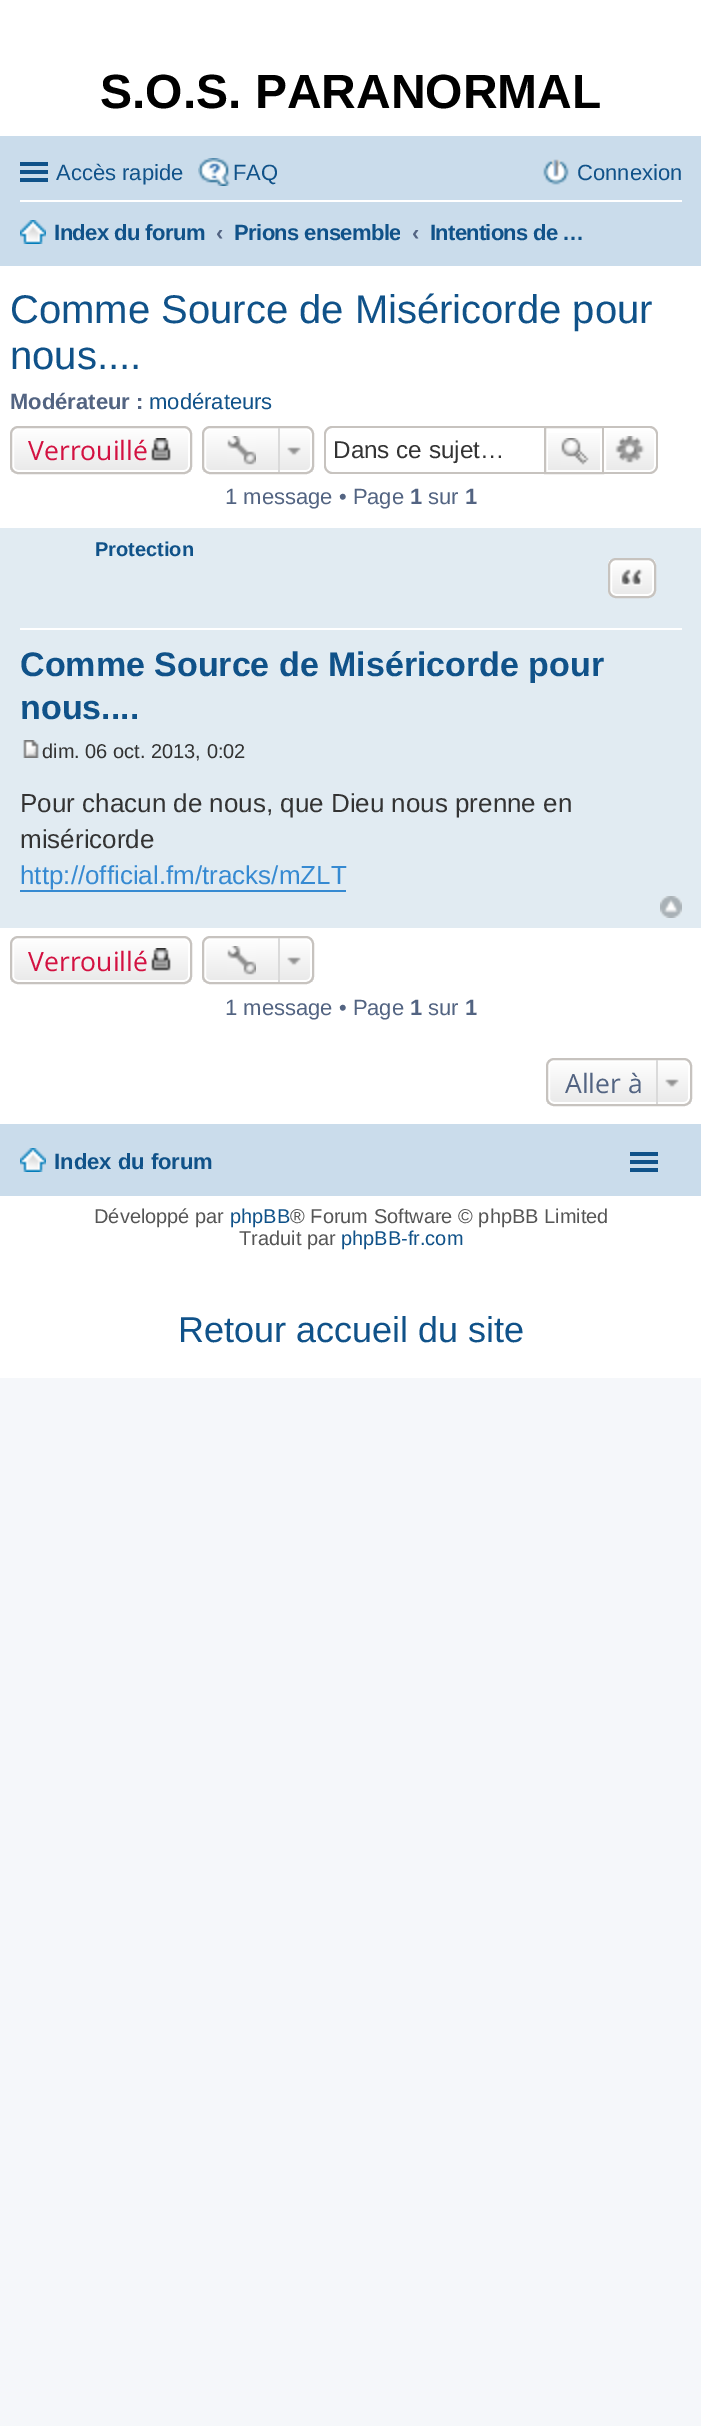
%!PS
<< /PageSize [701 2426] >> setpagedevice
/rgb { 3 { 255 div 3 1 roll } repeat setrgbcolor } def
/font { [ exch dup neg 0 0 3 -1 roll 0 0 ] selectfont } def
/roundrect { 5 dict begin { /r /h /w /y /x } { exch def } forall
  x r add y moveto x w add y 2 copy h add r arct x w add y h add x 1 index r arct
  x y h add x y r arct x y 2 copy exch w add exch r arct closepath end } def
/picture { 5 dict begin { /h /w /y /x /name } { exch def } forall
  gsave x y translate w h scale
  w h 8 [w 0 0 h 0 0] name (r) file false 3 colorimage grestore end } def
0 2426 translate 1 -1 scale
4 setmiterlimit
245 247 250 rgb
0 0 701 2426 rectfill
[
  [0 0 701 1378 255 255 255]
  [0 136 701 130 202 220 235]
  [20 162 28 4 16 82 137]
  [20 170 28 4 16 82 137]
  [20 178 28 4 16 82 137]
] { aload pop rgb rectfill } forall
(img/1.rgb) 198 158 32 28 picture
(img/2.rgb) 543 159 26 26 picture
255 255 255 rgb
20 200 662 2 rectfill
(img/3.rgb) 20 220 26 24 picture
gsave
10 426 182 48 8 roundrect clip newpath
gsave 10 428 moveto 192 428 lineto 192 472 lineto 10 472 lineto closepath clip newpath
<< /ShadingType 2 /ColorSpace /DeviceRGB /Coords [101 428 101 472] /Extend [true true] /Function << /FunctionType 2 /Domain [0 1] /C0 [1 1 1] /C1 [0.914 0.914 0.914] /N 1 >> >> shfill grestore
grestore
2 setlinewidth
13 429 176 42 5 roundrect stroke
199 195 191 rgb
11 427 180 46 7 roundrect stroke
(img/4.rgb) 151 438 20 23 picture
gsave
202 426 112 48 8 roundrect clip newpath
gsave 202 428 moveto 314 428 lineto 314 472 lineto 202 472 lineto closepath clip newpath
<< /ShadingType 2 /ColorSpace /DeviceRGB /Coords [258 428 258 472] /Extend [true true] /Function << /FunctionType 2 /Domain [0 1] /C0 [1 1 1] /C1 [0.914 0.914 0.914] /N 1 >> >> shfill grestore
grestore
255 255 255 rgb
205 429 106 42 5 roundrect stroke
199 195 191 rgb
203 427 110 46 7 roundrect stroke
(img/5.rgb) 227 436 29 29 picture
(img/6.rgb) 287 447 14 9 picture
218 218 218 rgb
278 428 2 44 rectfill
199 195 191 rgb
332 426 moveto 544 426 lineto 544 474 lineto 332 474 lineto 328 474 324 470 324 466 curveto 324 434 lineto 324 430 328 426 332 426 curveto closepath 332 428 moveto 544 428 lineto 544 472 lineto 332 472 lineto 329 472 326 469 326 466 curveto 326 434 lineto 326 431 329 428 332 428 curveto closepath eofill
gsave 548 433 moveto 600 433 lineto 600 470 lineto 548 470 lineto closepath clip newpath
<< /ShadingType 2 /ColorSpace /DeviceRGB /Coords [574 428 574 472] /Extend [true true] /Function << /FunctionType 2 /Domain [0 1] /C0 [1 1 1] /C1 [0.914 0.914 0.914] /N 1 >> >> shfill grestore
545 427 58 46 rectstroke
(img/7.rgb) 561 438 28 27 picture
gsave 605 429 moveto 650 429 lineto 653 429 655 431 655 434 curveto 655 466 lineto 655 469 653 471 650 471 curveto 605 471 lineto closepath clip newpath
<< /ShadingType 2 /ColorSpace /DeviceRGB /Coords [630 428 630 472] /Extend [true true] /Function << /FunctionType 2 /Domain [0 1] /C0 [1 1 1] /C1 [0.914 0.914 0.914] /N 1 >> >> shfill grestore
255 255 255 rgb
605 429 moveto 650 429 lineto 653 429 655 431 655 434 curveto 655 466 lineto 655 469 653 471 650 471 curveto 605 471 lineto closepath stroke
199 195 191 rgb
604 426 moveto 650 426 lineto 654 426 658 430 658 434 curveto 658 466 lineto 658 470 654 474 650 474 curveto 604 474 lineto closepath 604 428 moveto 650 428 lineto 653 428 656 431 656 434 curveto 656 466 lineto 656 469 653 472 650 472 curveto 604 472 lineto closepath eofill
(img/8.rgb) 615 436 30 27 picture
225 235 242 rgb
0 528 701 400 rectfill
255 255 255 rgb
20 628 662 2 rectfill
gsave
608 558 48 40 8 roundrect clip newpath
gsave 608 560 moveto 656 560 lineto 656 596 lineto 608 596 lineto closepath clip newpath
<< /ShadingType 2 /ColorSpace /DeviceRGB /Coords [632 560 632 596] /Extend [true true] /Function << /FunctionType 2 /Domain [0 1] /C0 [1 1 1] /C1 [0.914 0.914 0.914] /N 1 >> >> shfill grestore
grestore
611 561 42 34 5 roundrect stroke
199 195 191 rgb
609 559 46 38 7 roundrect stroke
(img/9.rgb) 620 569 23 17 picture
(img/10.rgb) 23 740 16 18 picture
54 138 210 rgb
20 890 326 2 rectfill
(img/11.rgb) 660 896 22 22 picture
gsave
10 936 182 48 8 roundrect clip newpath
gsave 10 938 moveto 192 938 lineto 192 982 lineto 10 982 lineto closepath clip newpath
<< /ShadingType 2 /ColorSpace /DeviceRGB /Coords [101 938 101 982] /Extend [true true] /Function << /FunctionType 2 /Domain [0 1] /C0 [1 1 1] /C1 [0.914 0.914 0.914] /N 1 >> >> shfill grestore
grestore
255 255 255 rgb
13 939 176 42 5 roundrect stroke
199 195 191 rgb
11 937 180 46 7 roundrect stroke
(img/4.rgb) 151 948 20 23 picture
gsave
202 936 112 48 8 roundrect clip newpath
gsave 202 938 moveto 314 938 lineto 314 982 lineto 202 982 lineto closepath clip newpath
<< /ShadingType 2 /ColorSpace /DeviceRGB /Coords [258 938 258 982] /Extend [true true] /Function << /FunctionType 2 /Domain [0 1] /C0 [1 1 1] /C1 [0.914 0.914 0.914] /N 1 >> >> shfill grestore
grestore
255 255 255 rgb
205 939 106 42 5 roundrect stroke
199 195 191 rgb
203 937 110 46 7 roundrect stroke
(img/5.rgb) 227 946 29 29 picture
(img/6.rgb) 287 957 14 9 picture
218 218 218 rgb
278 938 2 44 rectfill
gsave
546 1058 146 48 8 roundrect clip newpath
gsave 546 1060 moveto 692 1060 lineto 692 1104 lineto 546 1104 lineto closepath clip newpath
<< /ShadingType 2 /ColorSpace /DeviceRGB /Coords [619 1060 619 1104] /Extend [true true] /Function << /FunctionType 2 /Domain [0 1] /C0 [1 1 1] /C1 [0.914 0.914 0.914] /N 1 >> >> shfill grestore
grestore
255 255 255 rgb
549 1061 140 42 5 roundrect stroke
199 195 191 rgb
547 1059 144 46 7 roundrect stroke
(img/6.rgb) 665 1079 14 9 picture
218 218 218 rgb
656 1060 2 44 rectfill
202 220 235 rgb
0 1124 701 72 rectfill
(img/3.rgb) 20 1148 26 24 picture
[
  [630 1152 28 4 16 82 137]
  [630 1160 28 4 16 82 137]
  [630 1168 28 4 16 82 137]
] { aload pop rgb rectfill } forall
/LiberationSans-Bold 48 font
0 0 0 rgb
100 108 moveto (S.O.S. PARANORMAL) show
/LiberationSans-Regular 22 font
16 82 137 rgb
[
  [(Accès rapide) 56 180]
  [(FAQ) 233 180]
  [(Connexion) 577 180]
] { aload pop moveto show } forall
/LiberationSans-Bold 22 font
54 240 moveto -0.6 0 (Index du forum) ashow
83 100 130 rgb
216 240 moveto (‹) show
gsave
234 208 166 48 rectclip
16 82 137 rgb
234 240 moveto -0.6 0 (Prions ensemble) ashow
grestore
412 240 moveto (‹) show
16 82 137 rgb
430 240 moveto -0.75 0 (Intentions de …) ashow
/LiberationSans-Regular 40 font
10 323 moveto (Comme Source de Miséricorde pour) show
10 369 moveto (nous....) show
/LiberationSans-Bold 22 font
83 100 130 rgb
10 409 moveto (Modérateur :) show
/LiberationSans-Regular 22 font
16 82 137 rgb
149 409 moveto (modérateurs) show
/OpenSans-Regular 26.5 font
211 17 65 rgb
28 460 moveto (Verrouillé) show
/LiberationSans-Regular 24.25 font
51 51 51 rgb
333 458 moveto (Dans ce sujet…) show
/LiberationSans-Regular 22 font
83 100 130 rgb
225 504 moveto (1 message • Page) show
/LiberationSans-Bold 22 font
410 504 moveto (1) show
/LiberationSans-Regular 22 font
428 504 moveto (sur) show
/LiberationSans-Bold 22 font
465 504 moveto (1) show
/LiberationSans-Bold 20 font
16 82 137 rgb
95 556 moveto (Protection) show
/LiberationSans-Bold 34 font
20 676 moveto (Comme Source de Miséricorde pour) show
20 719 moveto (nous....) show
/LiberationSans-Regular 20 font
51 51 51 rgb
42 758 moveto (dim. 06 oct. 2013, 0:02) show
/LiberationSans-Regular 26 font
20 812 moveto (Pour chacun de nous, que Dieu nous prenne en) show
20 848 moveto (miséricorde) show
54 138 210 rgb
20 884 moveto (http://official.fm/tracks/mZLT) show
/OpenSans-Regular 26.5 font
211 17 65 rgb
28 971 moveto (Verrouillé) show
/LiberationSans-Regular 22 font
83 100 130 rgb
225 1015 moveto (1 message • Page) show
/LiberationSans-Bold 22 font
410 1015 moveto (1) show
/LiberationSans-Regular 22 font
428 1015 moveto (sur) show
/LiberationSans-Bold 22 font
465 1015 moveto (1) show
/OpenSans-Regular 26.5 font
565 1093 moveto (Aller à) show
/LiberationSans-Bold 22 font
16 82 137 rgb
54 1169 moveto (Index du forum) show
/LiberationSans-Regular 20 font
85 85 85 rgb
94 1223 moveto (Développé par) show
16 82 137 rgb
230 1223 moveto (phpBB) show
85 85 85 rgb
290 1223 moveto (® Forum Software © phpBB Limited) show
239 1245 moveto (Traduit par) show
16 82 137 rgb
341 1245 moveto (phpBB-fr.com) show
/LiberationSans-Regular 36 font
178 1342 moveto (Retour accueil du site) show
showpage
